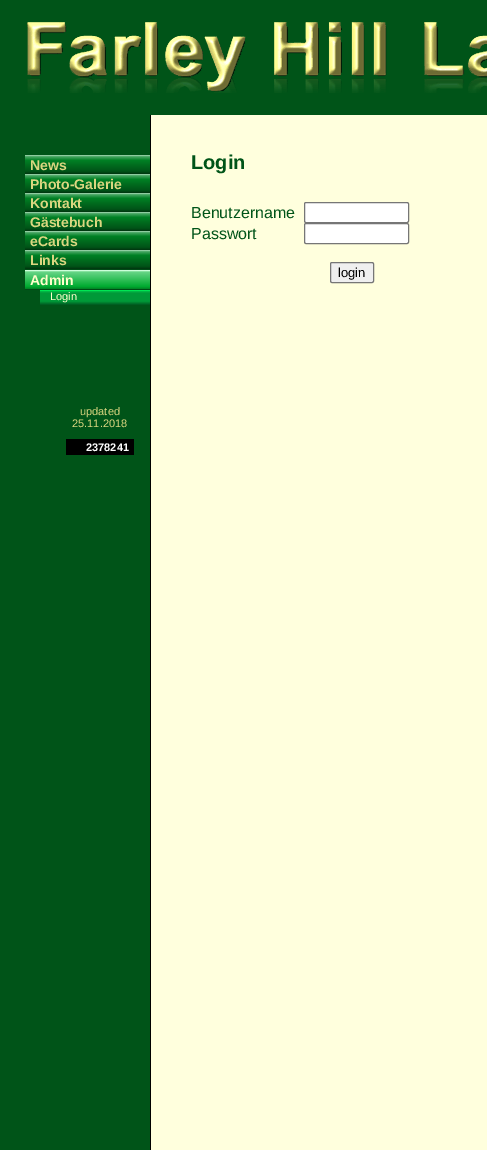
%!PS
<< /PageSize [487 1150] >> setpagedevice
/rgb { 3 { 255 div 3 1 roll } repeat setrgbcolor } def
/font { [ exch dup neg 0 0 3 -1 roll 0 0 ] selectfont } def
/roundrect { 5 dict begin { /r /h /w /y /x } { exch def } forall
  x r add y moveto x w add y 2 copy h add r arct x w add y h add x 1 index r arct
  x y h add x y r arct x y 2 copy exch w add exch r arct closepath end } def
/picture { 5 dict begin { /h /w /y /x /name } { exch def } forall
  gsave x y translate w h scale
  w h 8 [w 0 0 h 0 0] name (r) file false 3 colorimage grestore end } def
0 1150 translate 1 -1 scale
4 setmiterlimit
0 84 24 rgb
0 0 487 1150 rectfill
0 0 0 rgb
150 110 1 1040 rectfill
0 84 24 rgb
150 110 1 5 rectfill
(img/1.rgb) 27 22 460 71 picture
(img/2.rgb) 25 155 125 19 picture
(img/2.rgb) 25 174 125 19 picture
(img/2.rgb) 25 193 125 19 picture
(img/2.rgb) 25 212 125 19 picture
(img/2.rgb) 25 231 125 19 picture
(img/2.rgb) 25 250 125 19 picture
(img/3.rgb) 25 270 125 19 picture
0 74 21 rgb
25 269 125 1 rectfill
25 289 125 1 rectfill
(img/4.rgb) 40 290 110 15 picture
0 0 0 rgb
66 439 68 16 rectfill
255 255 221 rgb
151 115 336 1035 rectfill
255 255 255 rgb
304.5 202.5 104 20 1.5 roundrect gsave fill grestore
118 118 118 rgb
stroke
255 255 255 rgb
304.5 223.5 104 20 1.5 roundrect gsave fill grestore
118 118 118 rgb
stroke
239 239 239 rgb
330.5 262.5 43 20 1.5 roundrect gsave fill grestore
118 118 118 rgb
stroke
/LiberationSans-Bold 14 font
218 214 128 rgb
[
  [(News) 30 170]
  [(Photo-Galerie) 30 189]
  [(Kontakt) 30 208]
  [(Gästebuch) 30 227]
  [(eCards) 30 246]
  [(Links) 30 265]
] { aload pop moveto show } forall
255 255 204 rgb
30 285 moveto (Admin) show
/LiberationSans-Regular 11 font
50 300 moveto (Login) show
218 214 128 rgb
80 415 moveto (updated) show
72 427 moveto (25.11.2018) show
/LiberationSans-Bold 11 font
255 255 255 rgb
86 451 moveto (2378241) show
/LiberationSans-Bold 20 font
0 84 24 rgb
191 169 moveto (Login) show
/LiberationSans-Regular 16 font
191 218 moveto (Benutzername) show
191 239 moveto (Passwort) show
/LiberationSans-Regular 13 font
0 0 0 rgb
338 277 moveto (login) show
showpage
